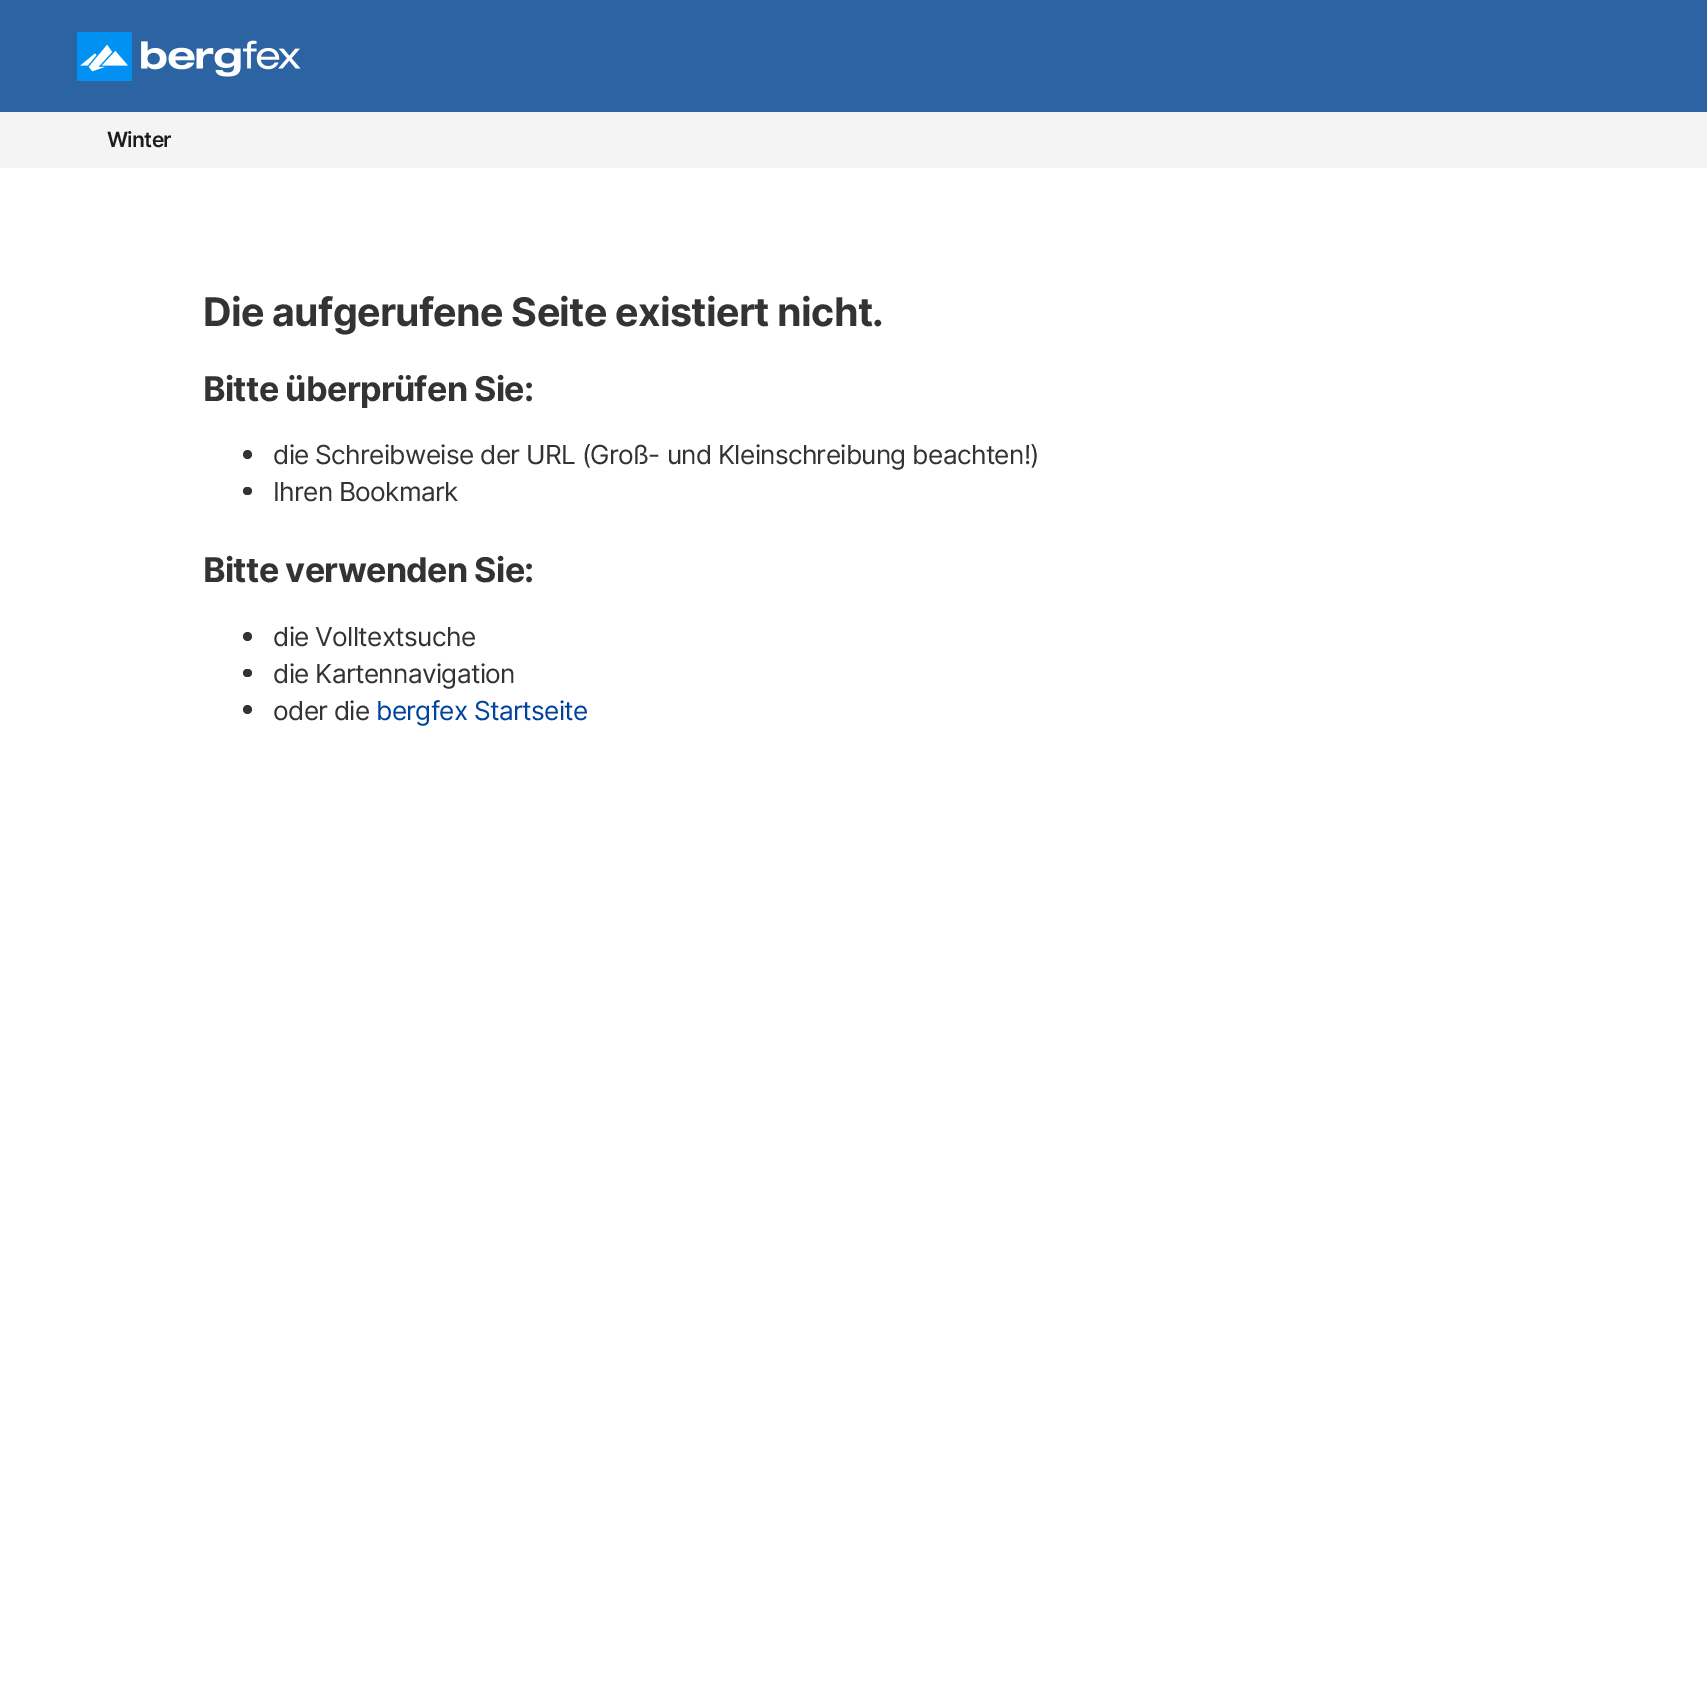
%!PS
<< /PageSize [1707 1691] >> setpagedevice
/rgb { 3 { 255 div 3 1 roll } repeat setrgbcolor } def
/font { [ exch dup neg 0 0 3 -1 roll 0 0 ] selectfont } def
/circle { newpath 0 360 arc closepath } def
/roundrect { 5 dict begin { /r /h /w /y /x } { exch def } forall
  x r add y moveto x w add y 2 copy h add r arct x w add y h add x 1 index r arct
  x y h add x y r arct x y 2 copy exch w add exch r arct closepath end } def
/picture { 5 dict begin { /h /w /y /x /name } { exch def } forall
  gsave x y translate w h scale
  w h 8 [w 0 0 h 0 0] name (r) file false 3 colorimage grestore end } def
0 1691 translate 1 -1 scale
4 setmiterlimit
255 255 255 rgb
0 0 1707 1691 rectfill
44 99 162 rgb
0 0 1707 112 rectfill
(img/1.rgb) 77 32 224 49 picture
244 244 244 rgb
0 112 1707 56 rectfill
51 51 51 rgb
247.5 454.5 4.5 circle fill
243 487 9 8 4 roundrect fill
247.5 636.5 4.5 circle fill
243 669 9 8 4 roundrect fill
247.5 709.5 4.5 circle fill
/Inter-SemiBold 21 font
28 28 28 rgb
107 147 moveto -0.7 0 (Winter) ashow
/Inter-Bold 39.4 font
51 51 51 rgb
203 326 moveto -0.7 0 (Die aufgerufene Seite existiert nicht.) ashow
/Inter-Bold 34.1 font
203 401 moveto -0.7 0 (Bitte überprüfen Sie:) ashow
/Inter-Regular 26.25 font
273 464 moveto -0.7 0 (die Schreibweise der URL \(Groß- und Kleinschreibung beachten!\)) ashow
273 501 moveto -0.7 0 (Ihren Bookmark) ashow
/Inter-Bold 34.1 font
203 582 moveto -0.7 0 (Bitte verwenden Sie:) ashow
/Inter-Regular 26.25 font
273 646 moveto -0.7 0 (die Volltextsuche) ashow
273 683 moveto -0.7 0 (die Kartennavigation) ashow
273 720 moveto -0.7 0 (oder die) ashow
0 66 158 rgb
376 720 moveto -0.7 0 (bergfex Startseite) ashow
showpage
